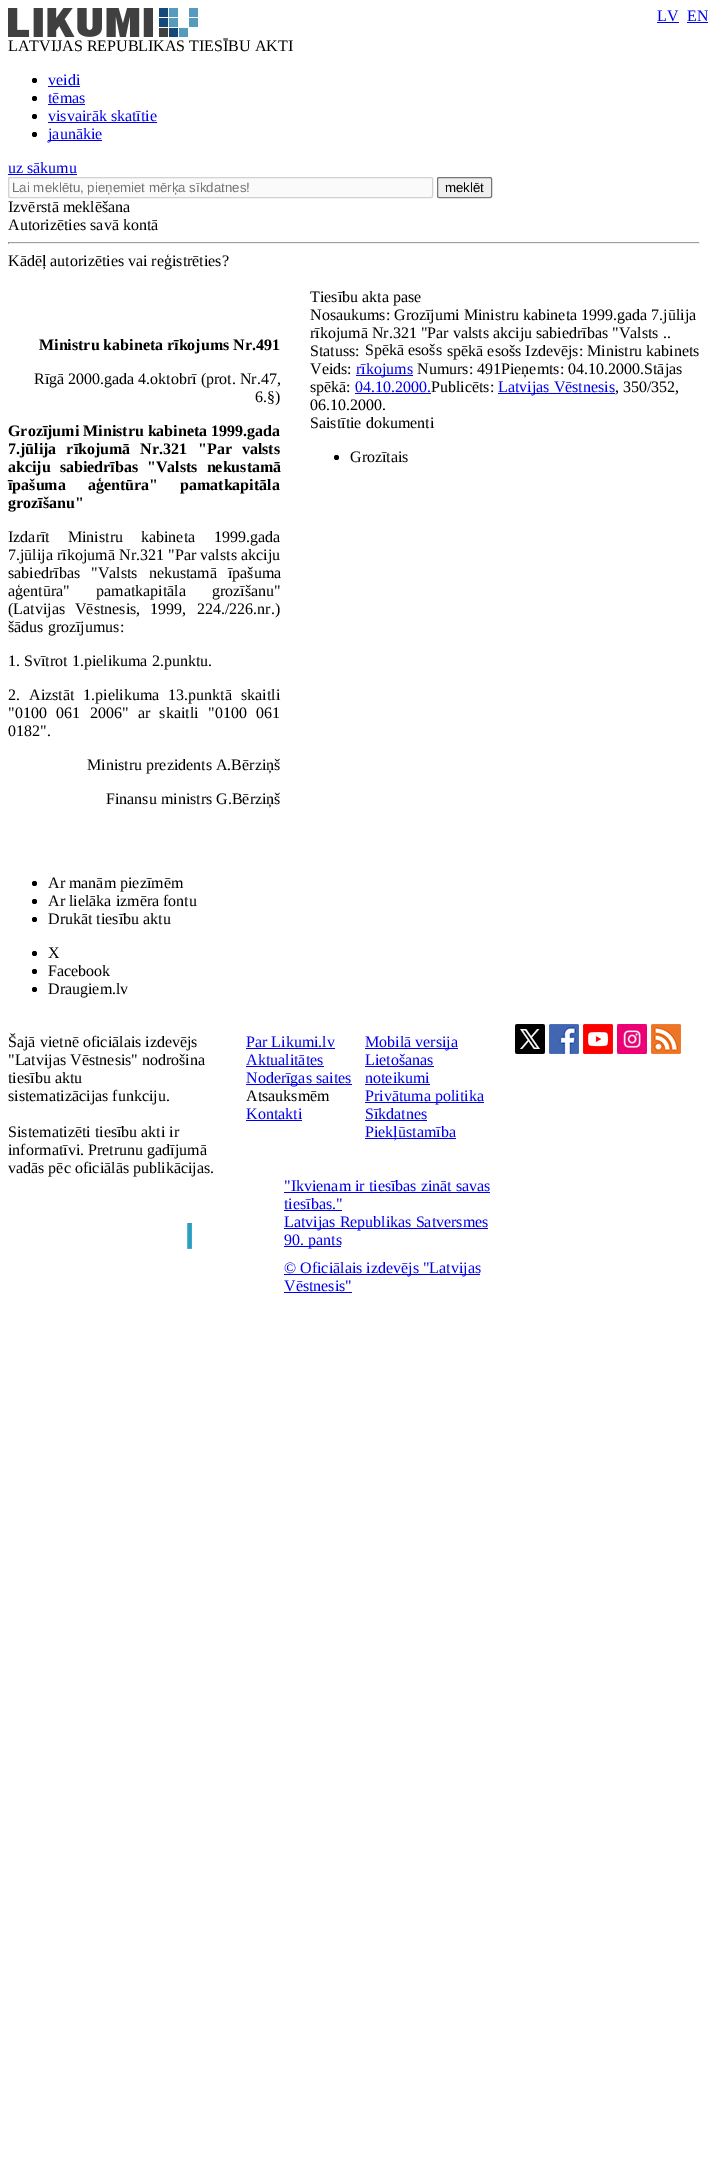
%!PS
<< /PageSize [708 2180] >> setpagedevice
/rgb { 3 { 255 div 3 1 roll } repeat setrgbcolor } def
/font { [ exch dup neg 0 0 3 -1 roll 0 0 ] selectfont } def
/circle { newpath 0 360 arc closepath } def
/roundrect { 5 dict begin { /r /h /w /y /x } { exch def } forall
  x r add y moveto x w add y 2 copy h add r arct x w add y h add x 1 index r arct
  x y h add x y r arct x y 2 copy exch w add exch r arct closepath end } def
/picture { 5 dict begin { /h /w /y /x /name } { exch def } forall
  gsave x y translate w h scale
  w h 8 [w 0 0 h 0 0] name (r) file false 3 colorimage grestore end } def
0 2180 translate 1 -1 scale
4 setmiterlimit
255 255 255 rgb
0 0 708 2180 rectfill
(img/1.rgb) 8 8 190 29 picture
0 0 238 rgb
657 22 22 1 rectfill
687 22 21 1 rectfill
0 0 0 rgb
34.5 80.5 2.5 circle fill
0 0 238 rgb
48 86 32 1 rectfill
0 0 0 rgb
34.5 98.5 2.5 circle fill
0 0 238 rgb
48 104 37 1 rectfill
0 0 0 rgb
34.5 116.5 2.5 circle fill
0 0 238 rgb
48 122 109 1 rectfill
0 0 0 rgb
34.5 134.5 2.5 circle fill
0 0 238 rgb
48 140 54 1 rectfill
8 174 69 1 rectfill
250 250 250 rgb
8.5 177.5 424 20 1.5 roundrect gsave fill grestore
210 210 210 rgb
stroke
239 239 239 rgb
437.5 177.5 54 20 1.5 roundrect gsave fill grestore
118 118 118 rgb
stroke
[
  [8 242 692 1 159 159 159]
  [699 242 1 2 238 238 238]
  [8 243 692 1 238 238 238]
  [8 242 1 2 159 159 159]
  [356 375 57 1 0 0 238]
  [355 393 76 1 0 0 238]
  [498 393 117 1 0 0 238]
] { aload pop rgb rectfill } forall
0 0 0 rgb
336.5 457.5 2.5 circle fill
34.5 883.5 2.5 circle fill
34.5 901.5 2.5 circle fill
34.5 919.5 2.5 circle fill
34.5 953.5 2.5 circle fill
34.5 971.5 2.5 circle fill
34.5 989.5 2.5 circle fill
[
  [246 1048 89 1 0 0 238]
  [246 1066 78 1 0 0 238]
  [246 1084 106 1 0 0 238]
  [246 1120 56 1 0 0 238]
  [365 1048 93 1 0 0 238]
  [365 1066 69 1 0 0 238]
  [365 1084 65 1 0 0 238]
  [365 1102 119 1 0 0 238]
  [365 1120 62 1 0 0 238]
  [365 1138 91 1 0 0 238]
] { aload pop rgb rectfill } forall
(img/2.rgb) 515 1024 30 30 picture
(img/3.rgb) 549 1024 30 30 picture
(img/4.rgb) 583 1024 30 30 picture
(img/5.rgb) 617 1024 30 30 picture
(img/6.rgb) 651 1024 30 30 picture
(img/7.rgb) 187 1223 5 26 picture
[
  [284 1192 206 1 0 0 238]
  [284 1210 58 1 0 0 238]
  [284 1228 204 1 0 0 238]
  [284 1246 57 1 0 0 238]
  [284 1274 196 1 0 0 238]
  [284 1292 68 1 0 0 238]
] { aload pop rgb rectfill } forall
/LiberationSerif-Regular 16 font
657 21 moveto (LV) show
687 21 moveto (EN) show
0 0 0 rgb
8 51 moveto (LATVIJAS REPUBLIKAS TIESĪBU AKTI) show
0 0 238 rgb
[
  [(veidi) 48 85]
  [(tēmas) 48 103]
  [(visvairāk skatītie) 48 121]
  [(jaunākie) 48 139]
  [(uz sākumu) 8 173]
] { aload pop moveto show } forall
/LiberationSans-Regular 13.3 font
117 117 117 rgb
12 192 moveto (Lai meklētu, pieņemiet mērķa sīkdatnes!) show
0 0 0 rgb
445 192 moveto (meklēt) show
/LiberationSerif-Regular 16 font
[
  [(Izvērstā meklēšana) 8 212]
  [(Autorizēties savā kontā) 8 230]
  [(Kādēļ autorizēties vai reģistrēties?) 8 266]
] { aload pop moveto show } forall
/LiberationSerif-Bold 16 font
39 350 moveto (Ministru kabineta rīkojums Nr.491) show
/LiberationSerif-Regular 16 font
34 384 moveto (Rīgā 2000.gada 4.oktobrī \(prot. Nr.47,) show
255 402 moveto (6.§\)) show
/LiberationSerif-Bold 16 font
8 436 moveto (Grozījumi Ministru kabineta 1999.gada) show
8 454 moveto 6 0 32 (7.jūlija rīkojumā Nr.321) widthshow
198 454 moveto 6 0 32 ("Par valsts) widthshow
8 472 moveto 5 0 32 (akciju sabiedrības "Valsts nekustamā) widthshow
8 490 moveto 18 0 32 (īpašuma aģentūra" pamatkapitāla) widthshow
8 508 moveto (grozīšanu") show
/LiberationSerif-Regular 16 font
8 542 moveto 14 0 32 (Izdarīt Ministru kabineta) widthshow
214 542 moveto (1999.gada) show
8 560 moveto 0.25 0 32 (7.jūlija rīkojumā Nr.321 "Par valsts akciju) widthshow
8 578 moveto 7 0 32 (sabiedrības "Valsts nekustamā īpašuma) widthshow
8 596 moveto (aģentūra") show
96 596 moveto 22 0 32 (pamatkapitāla grozīšanu") widthshow
8 614 moveto 6 0 32 (\(Latvijas Vēstnesis, 1999,) widthshow
[
  [(224./226.nr.\)) 197 614]
  [(šādus grozījumus:) 8 632]
  [(1. Svītrot 1.pielikuma 2.punktu.) 8 666]
] { aload pop moveto show } forall
8 700 moveto 5 0 32 (2. Aizstāt 1.pielikuma 13.punktā) widthshow
241 700 moveto (skaitli) show
8 718 moveto 5.5 0 32 ("0100 061 2006" ar skaitli "0100 061) widthshow
[
  [(0182".) 8 736]
  [(Ministru prezidents A.Bērziņš) 87 770]
  [(Finansu ministrs G.Bērziņš) 106 804]
  [(Tiesību akta pase) 310 302]
  [(Nosaukums: Grozījumi Ministru kabineta 1999.gada 7.jūlija) 310 320]
  [(rīkojumā Nr.321 "Par valsts akciju sabiedrības "Valsts ..) 310 338]
  [(Statuss:) 310 356]
  [(Spēkā esošs) 365 355]
  [(spēkā esošs Izdevējs: Ministru kabinets) 447 356]
  [(Veids:) 310 374]
] { aload pop moveto show } forall
0 0 238 rgb
356 374 moveto (rīkojums) show
0 0 0 rgb
417 374 moveto (Numurs: 491Pieņemts: 04.10.2000.Stājas) show
310 392 moveto (spēkā:) show
0 0 238 rgb
355 392 moveto (04.10.2000.) show
0 0 0 rgb
431 392 moveto (Publicēts:) show
0 0 238 rgb
498 392 moveto (Latvijas Vēstnesis) show
0 0 0 rgb
[
  [(, 350/352,) 615 392]
  [(06.10.2000.) 310 410]
  [(Saistītie dokumenti) 310 428]
  [(Grozītais) 350 462]
  [(Ar manām piezīmēm) 48 888]
  [(Ar lielāka izmēra fontu) 48 906]
  [(Drukāt tiesību aktu) 48 924]
  [(X) 48 958]
  [(Facebook) 48 976]
  [(Draugiem.lv) 48 994]
  [(Šajā vietnē oficiālais izdevējs) 8 1047]
  [("Latvijas Vēstnesis" nodrošina) 8 1065]
  [(tiesību aktu) 8 1083]
  [(sistematizācijas funkciju.) 8 1101]
  [(Sistematizēti tiesību akti ir) 8 1137]
  [(informatīvi. Pretrunu gadījumā) 8 1155]
  [(vadās pēc oficiālās publikācijas.) 8 1173]
] { aload pop moveto show } forall
0 0 238 rgb
[
  [(Par Likumi.lv) 246 1047]
  [(Aktualitātes) 246 1065]
  [(Noderīgas saites) 246 1083]
] { aload pop moveto show } forall
0 0 0 rgb
246 1101 moveto (Atsauksmēm) show
0 0 238 rgb
[
  [(Kontakti) 246 1119]
  [(Mobilā versija) 365 1047]
  [(Lietošanas) 365 1065]
  [(noteikumi) 365 1083]
  [(Privātuma politika) 365 1101]
  [(Sīkdatnes) 365 1119]
  [(Piekļūstamība) 365 1137]
  [("Ikvienam ir tiesības zināt savas) 284 1191]
  [(tiesības.") 284 1209]
  [(Latvijas Republikas Satversmes) 284 1227]
  [(90. pants) 284 1245]
  [(© Oficiālais izdevējs "Latvijas) 284 1273]
  [(Vēstnesis") 284 1291]
] { aload pop moveto show } forall
showpage
